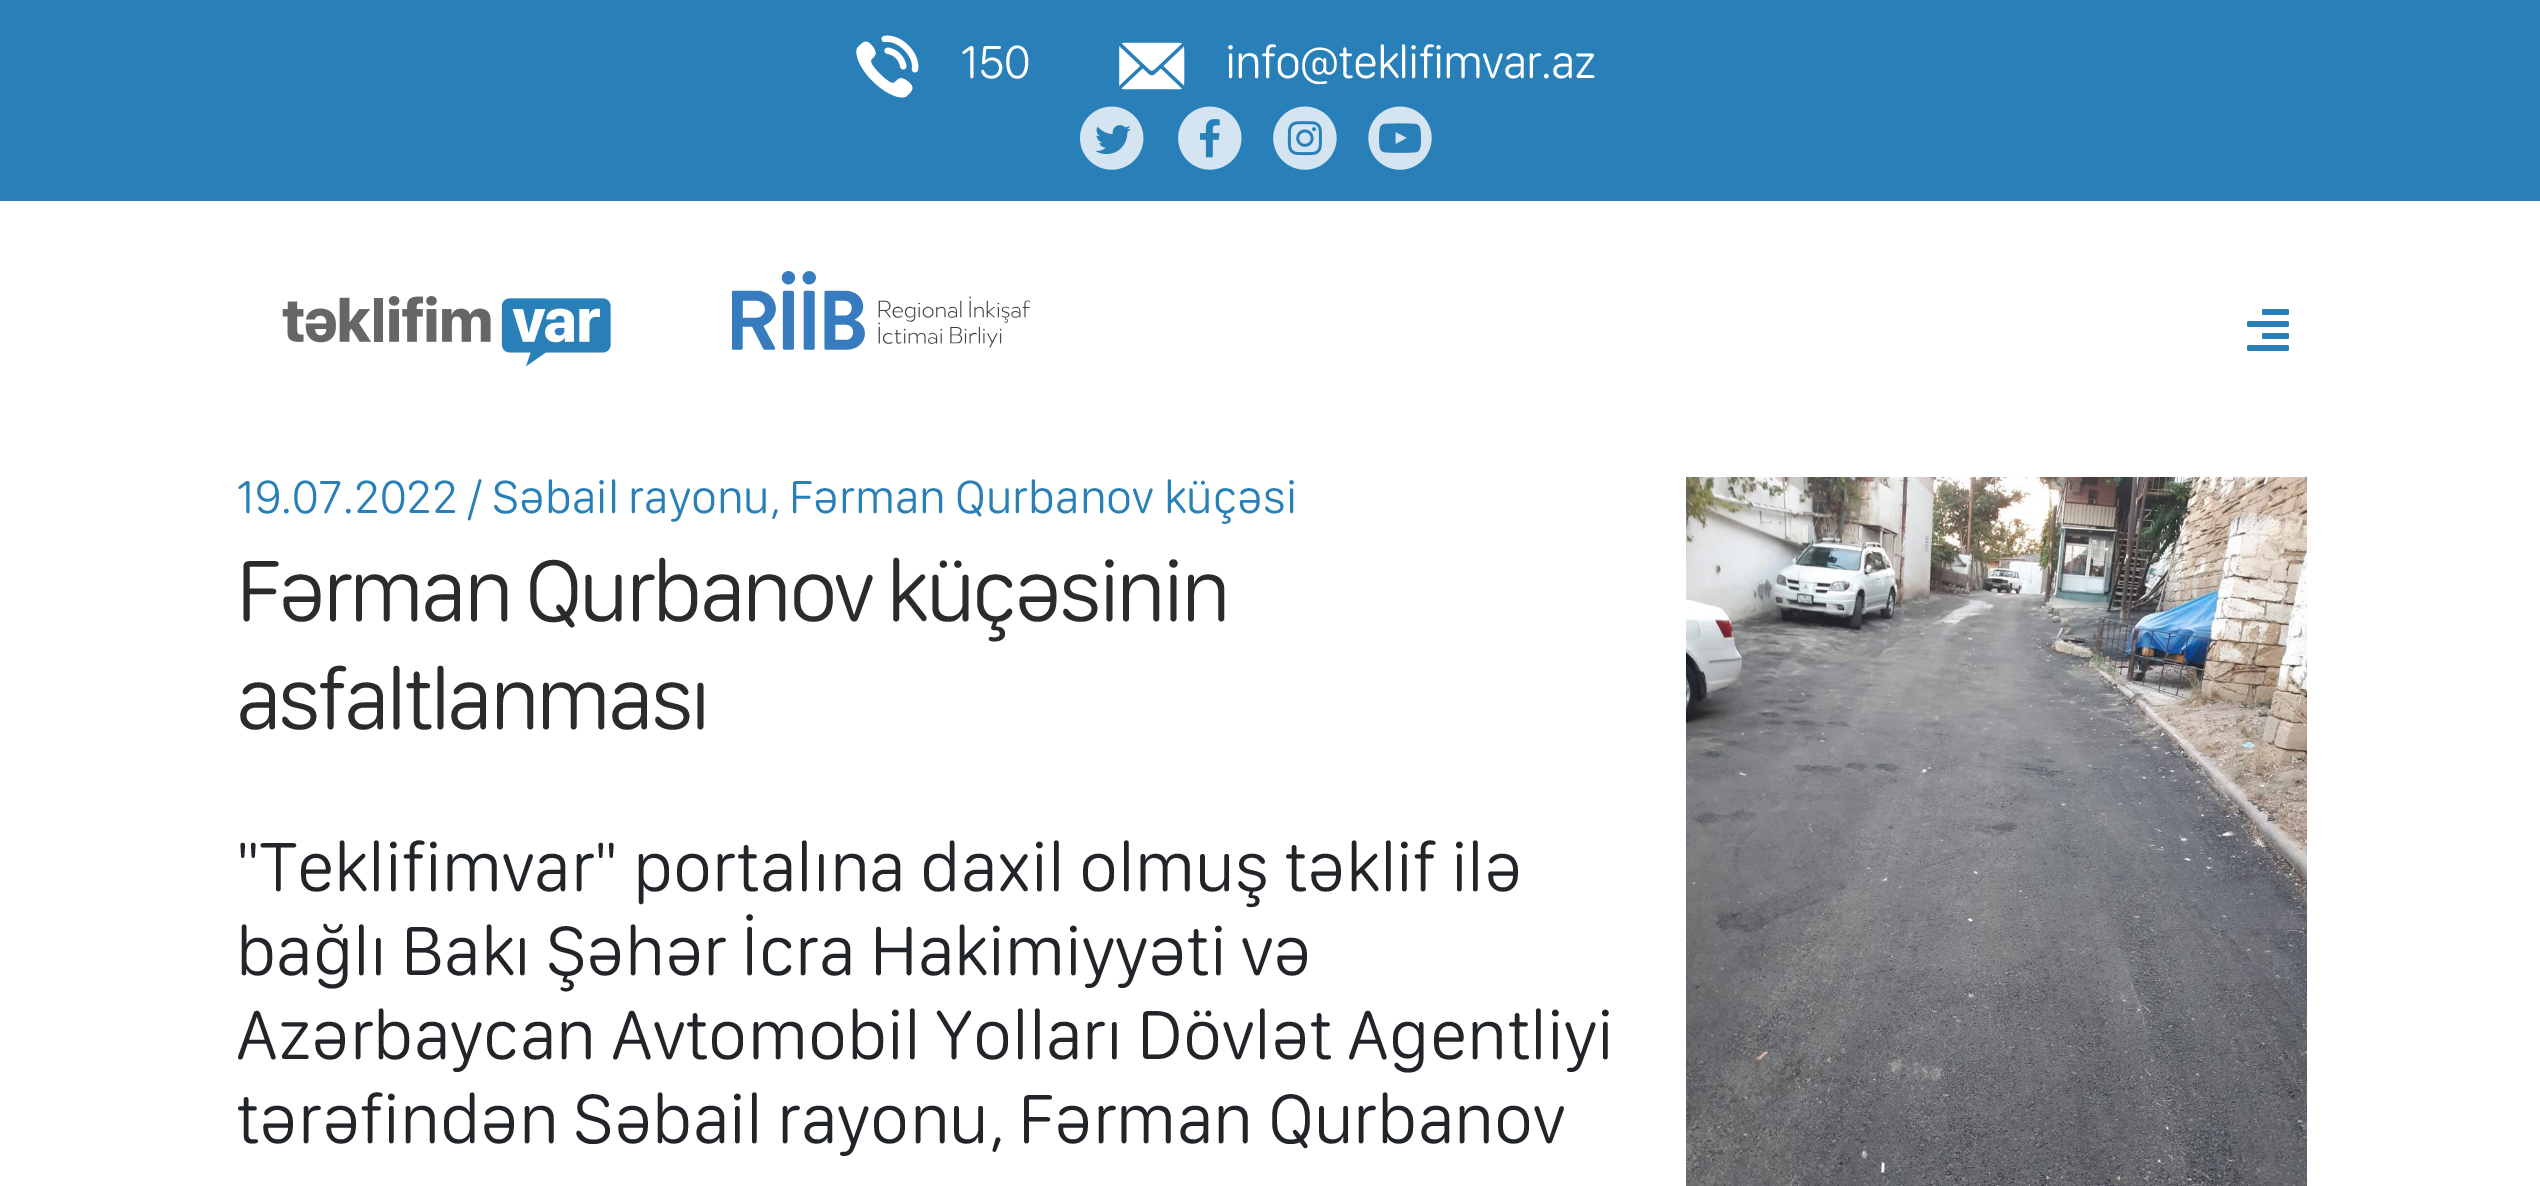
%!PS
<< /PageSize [2540 1186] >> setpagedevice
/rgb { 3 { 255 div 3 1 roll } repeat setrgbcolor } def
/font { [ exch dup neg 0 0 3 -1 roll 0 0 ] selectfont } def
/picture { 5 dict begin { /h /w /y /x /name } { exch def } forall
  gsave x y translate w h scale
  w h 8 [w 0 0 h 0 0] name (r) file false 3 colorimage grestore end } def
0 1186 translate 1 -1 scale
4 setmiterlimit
255 255 255 rgb
0 0 2540 1186 rectfill
41 127 184 rgb
0 0 2540 201 rectfill
(img/1.rgb) 856 35 63 63 picture
(img/2.rgb) 1119 42 66 48 picture
(img/3.rgb) 1080 106 64 64 picture
(img/4.rgb) 1178 106 64 64 picture
(img/5.rgb) 1273 106 64 64 picture
(img/6.rgb) 1368 106 64 64 picture
(img/7.rgb) 282 296 329 71 picture
(img/8.rgb) 732 271 299 79 picture
(img/9.rgb) 2247 309 42 42 picture
(img/10.rgb) 1686 477 621 709 picture
/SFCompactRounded-ExtraLight 48 font
255 255 255 rgb
960 78 moveto -1 0 (150) ashow
1225 78 moveto -1 0 (info@teklifimvar.az) ashow
41 127 184 rgb
236 513 moveto (19.07.2022 / Səbail rayonu, Fərman Qurbanov küçəsi) show
/SFCompactRounded-ExtraLight 90 font
43 43 43 rgb
236 621 moveto -3.25 0 (Fərman Qurbanov küçəsinin) ashow
236 729 moveto -3.25 0 (asfaltlanması) ashow
/SFCompactRounded-ExtraLight 72 font
33 37 41 rgb
[
  [("Teklifimvar" portalına daxil olmuş təklif ilə) 236 891]
  [(bağlı Bakı Şəhər İcra Hakimiyyəti və) 236 975]
  [(Azərbaycan Avtomobil Yolları Dövlət Agentliyi) 236 1059]
  [(tərəfindən Səbail rayonu, Fərman Qurbanov) 236 1143]
] { aload pop moveto show } forall
showpage
